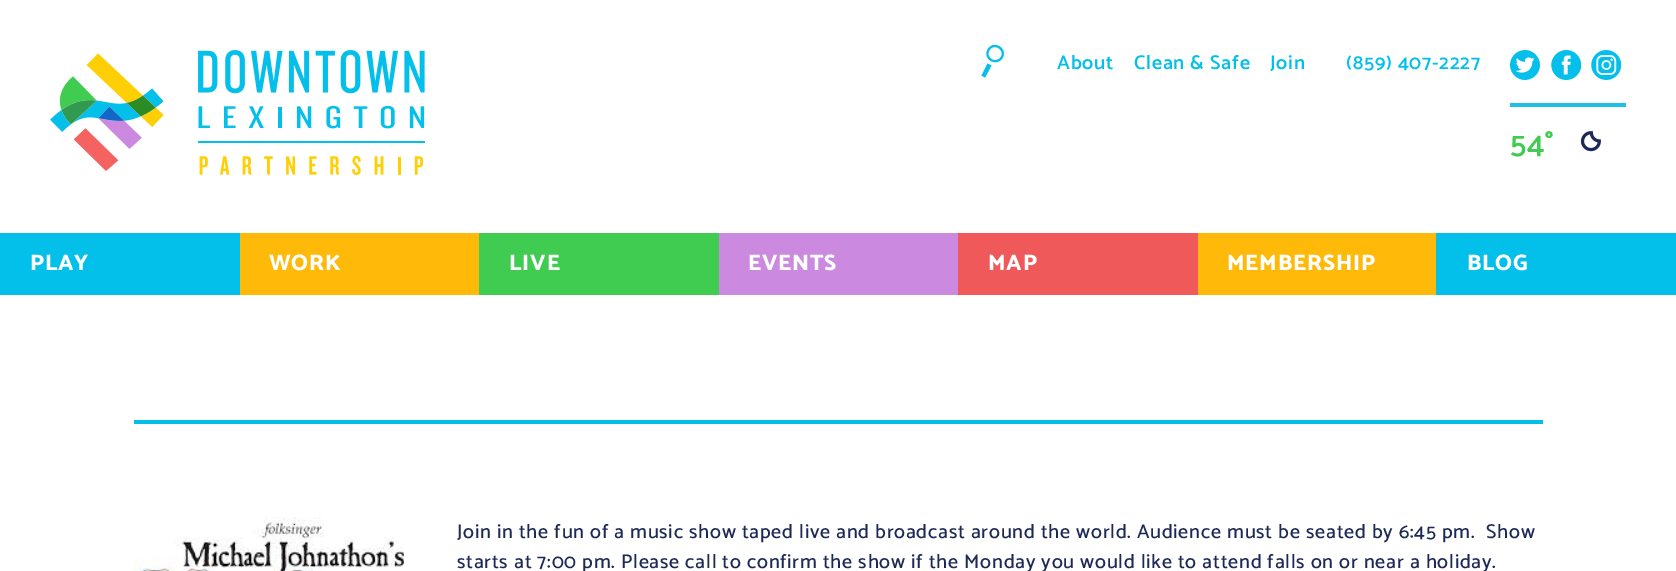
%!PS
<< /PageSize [1676 571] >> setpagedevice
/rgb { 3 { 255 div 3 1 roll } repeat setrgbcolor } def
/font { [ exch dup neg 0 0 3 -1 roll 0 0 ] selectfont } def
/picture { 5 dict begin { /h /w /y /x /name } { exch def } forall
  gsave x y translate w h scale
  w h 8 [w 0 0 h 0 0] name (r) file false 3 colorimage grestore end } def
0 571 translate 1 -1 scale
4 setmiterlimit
255 255 255 rgb
0 0 1676 571 rectfill
(img/1.rgb) 50 50 375 125 picture
3 191 234 rgb
2 setlinewidth
988.5 50 moveto 993 41 1006.5 48.5 1002 57 curveto 997 66 983.5 59 988.5 50 curveto closepath stroke
987.5 63.5 moveto 991.5 65.5 lineto 985 77.5 lineto 981.5 75.5 lineto closepath fill
(img/2.rgb) 1510 50 30 30 picture
(img/3.rgb) 1551 50 30 30 picture
(img/4.rgb) 1591 50 30 30 picture
31 191 232 rgb
1510 103 116 4 rectfill
(img/5.rgb) 1580 131 21 21 picture
[
  [0 233 240 62 2 192 234]
  [240 233 239 62 255 185 9]
  [479 233 240 62 63 204 80]
  [719 233 239 62 203 138 224]
  [958 233 240 62 239 89 89]
  [1198 233 238 62 255 185 9]
  [1436 233 240 62 2 192 234]
  [134 420 1409 4 2 191 234]
] { aload pop rgb rectfill } forall
(img/6.rgb) 134 517 270 54 picture
/Catamaran-SemiBold 20 font
2 192 234 rgb
1057 69 moveto 0.75 0 (About) ashow
1134 69 moveto 0.75 0 (Clean & Safe) ashow
1270 69 moveto 0.75 0 (Join) ashow
1346 69 moveto 0.75 0 (\(859\) 407-2227) ashow
/Catamaran-SemiBold 32 font
63 204 80 rgb
1510 154 moveto 0.75 0 (54°) ashow
/Catamaran-ExtraBold 22.5 font
255 255 255 rgb
30 270 moveto 0.75 0 (PLAY) ashow
269 270 moveto 0.75 0 (WORK) ashow
509 270 moveto 0.75 0 (LIVE) ashow
748 270 moveto 0.75 0 (EVENTS) ashow
988 270 moveto 0.75 0 (MAP) ashow
1227 270 moveto 0.75 0 (MEMBERSHIP) ashow
1467 270 moveto 0.75 0 (BLOG) ashow
/Catamaran-Medium 20 font
28 40 86 rgb
457 538 moveto 0.75 0 (Join in the fun of a music show taped live and broadcast around the world. Audience must be seated by 6:45 pm.  Show) ashow
457 568 moveto 0.75 0 (starts at 7:00 pm. Please call to confirm the show if the Monday you would like to attend falls on or near a holiday.) ashow
showpage
